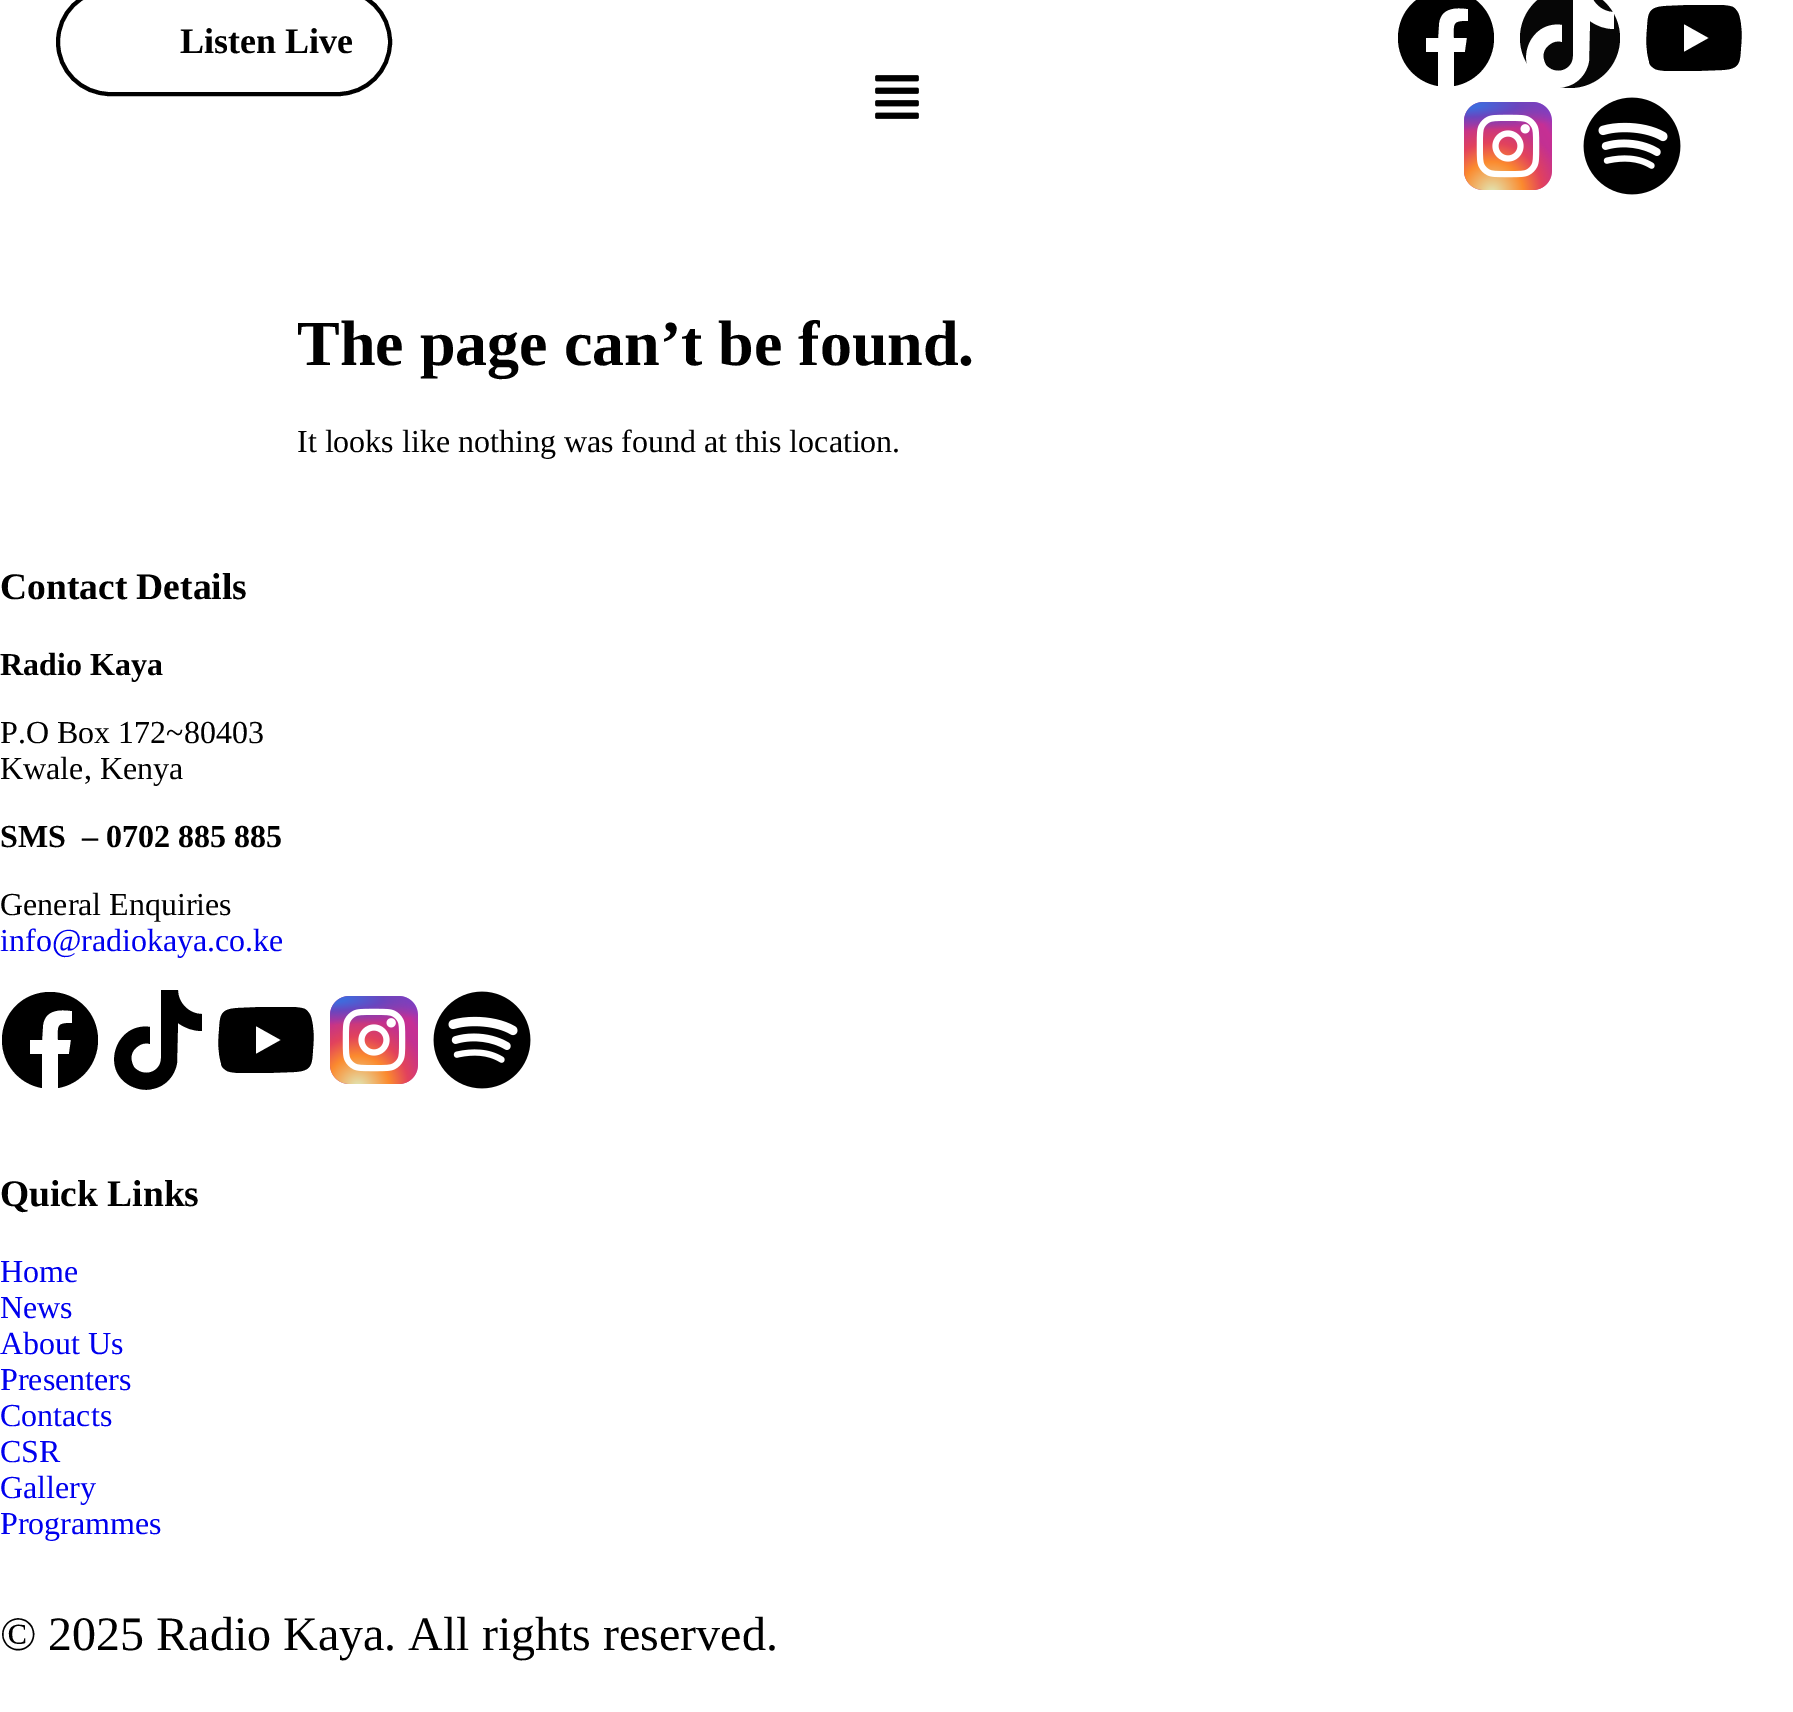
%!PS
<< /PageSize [1793 1712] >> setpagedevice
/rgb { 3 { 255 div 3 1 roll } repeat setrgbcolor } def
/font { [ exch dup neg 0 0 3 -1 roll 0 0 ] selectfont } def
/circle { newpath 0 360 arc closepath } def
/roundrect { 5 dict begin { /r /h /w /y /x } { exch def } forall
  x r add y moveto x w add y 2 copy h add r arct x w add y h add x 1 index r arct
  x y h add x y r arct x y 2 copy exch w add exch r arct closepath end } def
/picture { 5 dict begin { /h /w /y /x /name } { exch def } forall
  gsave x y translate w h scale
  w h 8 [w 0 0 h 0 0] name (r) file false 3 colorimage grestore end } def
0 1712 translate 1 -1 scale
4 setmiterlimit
255 255 255 rgb
0 0 1793 1712 rectfill
0 0 0 rgb
4 setlinewidth
58 -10 332 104 52 roundrect stroke
1494 38 moveto 1494 11 1473 -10 1446 -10 curveto 1419 -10 1398 11 1398 38 curveto 1398 62 1415 82 1438 86 curveto 1438 52 lineto 1426 52 lineto 1426 38 lineto 1438 38 lineto 1439 23 lineto 1441 8 1455 7 1468 9 curveto 1468 21 lineto 1452 21 1454 24 1454 38 curveto 1467 38 lineto 1465 52 lineto 1454 52 lineto 1454 86 lineto 1477 82 1494 62 1494 38 curveto closepath fill
6 6 6 rgb
1570 38 50 circle fill
255 255 255 rgb
1614 29 moveto 1605 29 1597 26 1590 21 curveto 1589 61 lineto 1587 74 1577 85 1564 87 curveto 1557 89 1548 87 1541 83 curveto 1512 66 1529 20 1562 25 curveto 1562 42 lineto 1556 40 1550 43 1546 48 curveto 1542 53 1543 60 1546 65 curveto 1550 70 1557 72 1563 70 curveto 1569 68 1573 63 1573 56 curveto 1573 -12 lineto 1590 -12 lineto 1590 1 1601 12 1614 12 curveto closepath fill
0 0 0 rgb
1739 15 moveto 1738 12 1736 9 1733 7 curveto 1728 5 1721 5 1716 5 curveto 1689 5 lineto 1666 6 lineto 1648 7 1648 13 1647 29 curveto 1646 40 1646 51 1649 61 curveto 1649 65 1652 67 1655 69 curveto 1660 71 1667 71 1672 71 curveto 1695 71 lineto 1722 70 lineto 1740 69 1740 63 1741 47 curveto 1742 36 1742 25 1739 15 curveto closepath 1684 52 moveto 1684 24 lineto 1709 38 lineto closepath fill
(img/1.rgb) 1464 102 88 88 picture
(img/2.rgb) 1583 97 98 98 picture
(img/3.rgb) 875 75 44 44 picture
98 1040 moveto 98 1013 77 992 50 992 curveto 23 992 2 1013 2 1040 curveto 2 1064 19 1084 42 1088 curveto 42 1054 lineto 30 1054 lineto 30 1040 lineto 42 1040 lineto 43 1025 lineto 45 1010 59 1009 72 1011 curveto 72 1023 lineto 56 1023 58 1026 58 1040 curveto 71 1040 lineto 69 1054 lineto 58 1054 lineto 58 1088 lineto 81 1084 98 1064 98 1040 curveto closepath fill
202 1031 moveto 193 1031 185 1028 178 1023 curveto 177 1063 lineto 175 1076 165 1087 152 1089 curveto 145 1091 136 1089 129 1085 curveto 100 1068 117 1022 150 1027 curveto 150 1044 lineto 144 1042 138 1045 134 1050 curveto 130 1055 131 1062 134 1067 curveto 138 1072 145 1074 151 1072 curveto 157 1070 161 1065 161 1058 curveto 161 990 lineto 178 990 lineto 178 1003 189 1014 202 1014 curveto closepath fill
311 1017 moveto 310 1014 308 1011 305 1009 curveto 300 1007 293 1007 288 1007 curveto 261 1007 lineto 238 1008 lineto 220 1009 220 1015 219 1031 curveto 218 1042 218 1053 221 1063 curveto 221 1067 224 1069 227 1071 curveto 232 1073 239 1073 244 1073 curveto 267 1073 lineto 294 1072 lineto 312 1071 312 1065 313 1049 curveto 314 1038 314 1027 311 1017 curveto closepath 256 1054 moveto 256 1026 lineto 281 1040 lineto closepath fill
(img/1.rgb) 330 996 88 88 picture
(img/2.rgb) 433 991 98 98 picture
/LiberationSerif-Bold 36 font
180 53 moveto (Listen Live) show
/LiberationSerif-Bold 64 font
297 365 moveto (The page can’t be found.) show
/LiberationSerif-Regular 32 font
297 452 moveto (It looks like nothing was found at this location.) show
/LiberationSerif-Bold 37.5 font
0 599 moveto (Contact Details) show
/LiberationSerif-Bold 32 font
0 675 moveto (Radio Kaya) show
/LiberationSerif-Regular 32 font
0 743 moveto (P.O Box 172~80403) show
0 779 moveto (Kwale, Kenya) show
/LiberationSerif-Bold 32 font
0 847 moveto (SMS  – 0702 885 885) show
/LiberationSerif-Regular 32 font
0 915 moveto (General Enquiries) show
0 0 238 rgb
0 951 moveto (info@radiokaya.co.ke) show
/LiberationSerif-Bold 37.5 font
0 0 0 rgb
0 1206 moveto (Quick Links) show
/LiberationSerif-Regular 32 font
0 0 238 rgb
[
  [(Home) 0 1282]
  [(News) 0 1318]
  [(About Us) 0 1354]
  [(Presenters) 0 1390]
  [(Contacts) 0 1426]
  [(CSR) 0 1462]
  [(Gallery) 0 1498]
  [(Programmes) 0 1534]
] { aload pop moveto show } forall
/LiberationSerif-Regular 48 font
0 0 0 rgb
0 1650 moveto (© 2025 Radio Kaya. All rights reserved.) show
showpage
